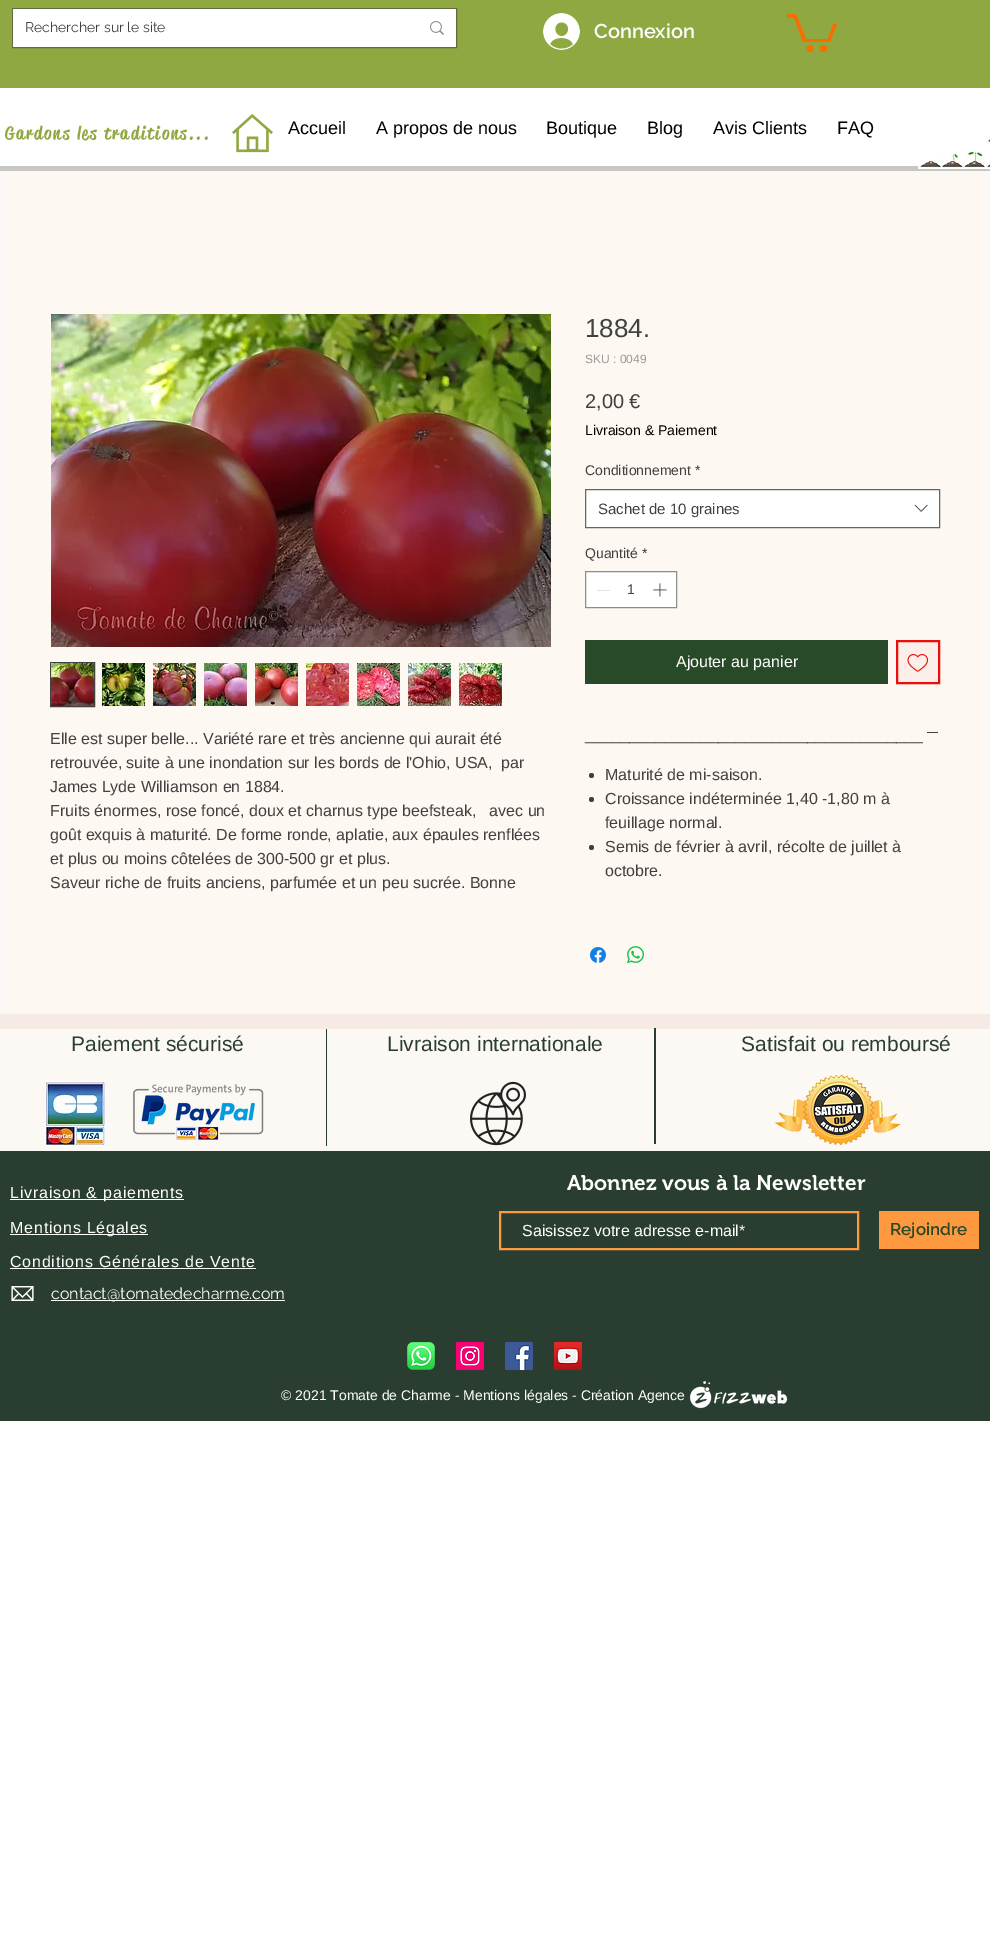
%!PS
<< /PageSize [990 1949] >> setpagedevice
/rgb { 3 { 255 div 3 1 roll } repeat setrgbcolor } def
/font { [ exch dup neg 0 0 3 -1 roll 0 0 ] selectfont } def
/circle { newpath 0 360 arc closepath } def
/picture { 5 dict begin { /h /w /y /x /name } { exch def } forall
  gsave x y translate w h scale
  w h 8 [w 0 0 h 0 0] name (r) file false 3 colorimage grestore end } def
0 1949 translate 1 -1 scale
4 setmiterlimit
255 255 255 rgb
0 0 990 1949 rectfill
144 168 66 rgb
0 0 990 88 rectfill
97 106 65 rgb
12.5 8.5 444 39 rectstroke
255 255 255 rgb
13 9 443 38 rectfill
(img/1.rgb) 430 21 14 14 picture
(img/2.rgb) 543 13 37 37 picture
249 108 0 rgb
837 24 moveto 830 42 lineto 803 42 lineto 794 18 lineto 787 18 lineto 787 14 lineto 796 14 lineto 806 39 lineto 828 39 lineto 833 24 lineto fill
823.5 48.5 3.5 circle fill
810 48.5 3.5 circle fill
(img/3.rgb) 232 114 41 39 picture
199 199 199 rgb
0 166 990 5 rectfill
(img/4.rgb) 918 136 72 33 picture
252 248 246 rgb
0 171 990 843 rectfill
253 248 242 rgb
5 171 980 843 rectfill
(img/5.rgb) 51 314 500 333 picture
65 65 65 rgb
50.5 662.5 44 44 rectstroke
(img/6.rgb) 51 663 43 43 picture
(img/7.rgb) 102 663 43 43 picture
(img/8.rgb) 153 663 43 43 picture
(img/9.rgb) 204 663 43 43 picture
(img/10.rgb) 255 663 43 43 picture
(img/11.rgb) 306 663 43 43 picture
(img/12.rgb) 357 663 43 43 picture
(img/13.rgb) 408 663 43 43 picture
(img/14.rgb) 459 663 43 43 picture
255 255 255 rgb
585.5 489.5 moveto 939.5 489.5 lineto 939.5 527.5 lineto 585.5 527.5 lineto closepath gsave fill grestore
102 102 102 rgb
stroke
(img/15.rgb) 914 504 14 8 picture
255 255 255 rgb
585.5 571.5 moveto 676.5 571.5 lineto 676.5 607.5 lineto 585.5 607.5 lineto closepath gsave fill grestore
141 141 141 rgb
stroke
227 227 227 rgb
597 590 13 1 rectfill
(img/16.rgb) 653 583 14 14 picture
41 74 40 rgb
585 640 303 44 rectfill
252 239 233 rgb
897 641 moveto 939 641 lineto 939 683 lineto 897 683 lineto closepath gsave fill grestore
235 14 14 rgb
2 setlinewidth
stroke
(img/17.rgb) 907 654 22 18 picture
65 65 65 rgb
927 732 11 1 rectfill
591.5 775.5 2.5 circle fill
591.5 799.5 2.5 circle fill
591.5 847.5 2.5 circle fill
(img/18.rgb) 590 947 16 16 picture
(img/19.rgb) 627 946 17 17 picture
[
  [0 1014 990 15 246 235 228]
  [0 1029 990 122 252 249 244]
  [326 1029 1 117 41 62 49]
  [654 1028 2 116 41 62 49]
] { aload pop rgb rectfill } forall
(img/20.rgb) 45 1081 60 65 picture
(img/21.rgb) 133 1084 131 56 picture
(img/22.rgb) 470 1081 56 65 picture
(img/23.rgb) 775 1074 126 72 picture
[
  [0 1151 990 270 41 62 49]
  [10 1199 174 1 255 255 255]
  [10 1234 138 1 255 255 255]
] { aload pop rgb rectfill } forall
255 153 64 rgb
500 1212 358 37 rectstroke
879 1211 100 38 rectfill
255 255 255 rgb
10 1268 246 1 rectfill
(img/24.rgb) 11 1286 23 15 picture
51 1300 234 1 rectfill
(img/25.rgb) 407 1342 28 28 picture
(img/26.rgb) 456 1342 28 28 picture
(img/27.rgb) 505 1342 28 28 picture
(img/28.rgb) 554 1342 28 28 picture
(img/29.rgb) 689 1381 99 28 picture
/Raleway-Regular 14 font
65 65 65 rgb
25 32 moveto (Rechercher sur le site) show
/Raleway-SemiBold 20 font
255 255 255 rgb
594 38 moveto (Connexion) show
/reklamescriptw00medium-Medium 18 font
144 168 66 rgb
5 139 moveto 1.8 0 (Gardons les traditions...) ashow
/LiberationSans-Regular 18 font
0 0 0 rgb
[
  [(Accueil) 288 134]
  [(A propos de nous) 376 134]
  [(Boutique) 546 134]
  [(Blog) 647 134]
  [(Avis Clients) 713 134]
  [(FAQ) 837 134]
] { aload pop moveto show } forall
/LiberationSans-Regular 16 font
65 65 65 rgb
[
  [(Elle est super belle... Variété rare et très ancienne qui aurait été) 50 744]
  [(retrouvée, suite à une inondation sur les bords de l'Ohio, USA,  par) 50 768]
  [(James Lyde Williamson en 1884.) 50 792]
  [(Fruits énormes, rose foncé, doux et charnus type beefsteak,   avec un) 50 816]
  [(goût exquis à maturité. De forme ronde, aplatie, aux épaules renflées) 50 840]
  [(et plus ou moins côtelées de 300-500 gr et plus.) 50 864]
  [(Saveur riche de fruits anciens, parfumée et un peu sucrée. Bonne) 50 888]
] { aload pop moveto show } forall
/LiberationSans-Regular 26 font
585 337 moveto (1884.) show
/LiberationSans-Regular 12 font
153 153 151 rgb
585 363 moveto (SKU : 0049) show
/LiberationSans-Regular 20 font
65 65 65 rgb
585 408 moveto (2,00 €) show
/LiberationSans-Regular 14 font
0 0 0 rgb
585 435 moveto (Livraison & Paiement) show
65 65 65 rgb
585 475 moveto (Conditionnement *) show
/LiberationSans-Regular 15 font
598 514 moveto (Sachet de 10 graines) show
/LiberationSans-Regular 14 font
585 558 moveto (Quantité *) show
627 594 moveto (1) show
/LiberationSans-Regular 16 font
255 255 255 rgb
676 667 moveto (Ajouter au panier) show
65 65 65 rgb
[
  [(______________________________________) 585 740]
  [(Maturité de mi-saison.) 605 780]
  [(Croissance indéterminée 1,40 -1,80 m à) 605 804]
  [(feuillage normal.) 605 828]
  [(Semis de février à avril, récolte de juillet à) 605 852]
  [(octobre.) 605 876]
] { aload pop moveto show } forall
/LiberationSans-Regular 21 font
41 62 49 rgb
[
  [(Paiement sécurisé) 71 1051]
  [(Livraison internationale) 387 1051]
  [(Satisfait ou remboursé) 741 1051]
] { aload pop moveto show } forall
/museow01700-SemiBold 21 font
255 255 255 rgb
567 1190 moveto (Abonnez vous à la Newsletter) show
/LiberationSans-Regular 16 font
10 1198 moveto 0.8 0 (Livraison & paiements) ashow
10 1233 moveto 0.8 0 (Mentions Légales) ashow
522 1236 moveto (Saisissez votre adresse e-mail*) show
/Raleway-SemiBold 17 font
41 74 40 rgb
890 1235 moveto (Rejoindre) show
/LiberationSans-Regular 16 font
255 255 255 rgb
10 1267 moveto 0.8 0 (Conditions Générales de Vente) ashow
/Raleway-Regular 16 font
51 1299 moveto (contact@tomatedecharme.com) show
/LiberationSans-Regular 14 font
281 1400 moveto (© 2021 Tomate de Charme - Mentions légales - Création Agence) show
showpage
